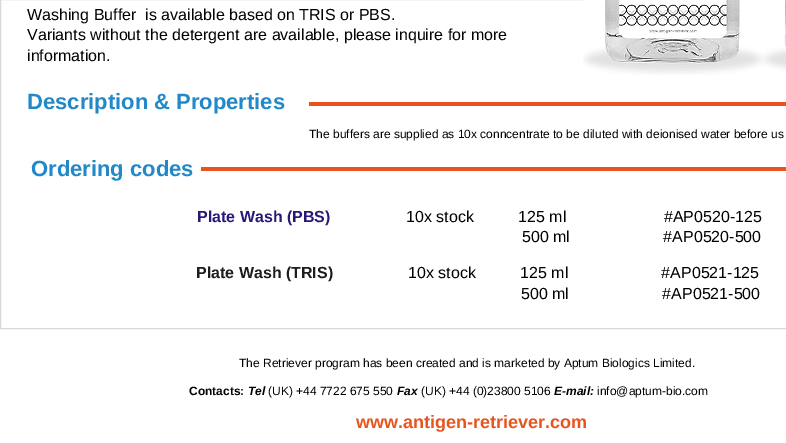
%!PS
<< /PageSize [786 443] >> setpagedevice
/rgb { 3 { 255 div 3 1 roll } repeat setrgbcolor } def
/font { [ exch dup neg 0 0 3 -1 roll 0 0 ] selectfont } def
/picture { 5 dict begin { /h /w /y /x /name } { exch def } forall
  gsave x y translate w h scale
  w h 8 [w 0 0 h 0 0] name (r) file false 3 colorimage grestore end } def
0 443 translate 1 -1 scale
4 setmiterlimit
255 255 255 rgb
0 0 786 443 rectfill
217 217 217 rgb
0.5 -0.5 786 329 rectstroke
(img/1.rgb) 583 0 203 75 picture
232 84 30 rgb
309 102 477 4 rectfill
201 167 585 4 rectfill
/LiberationSans-Regular 16 font
0 0 0 rgb
[
  [(Washing Buffer  is available based on TRIS or PBS.) 27 20]
  [(Variants without the detergent are available, please inquire for more) 27 40]
  [(information.) 27 61]
] { aload pop moveto show } forall
/LiberationSans-Bold 22 font
34 137 201 rgb
27 109 moveto (Description & Properties) show
/LiberationSans-Regular 12 font
0 0 0 rgb
309 138 moveto (The buffers are supplied as 10x conncentrate to be diluted with deionised water before us) show
/LiberationSans-Bold 22 font
34 137 201 rgb
31 176 moveto (Ordering codes) show
/LiberationSans-Bold 16 font
40 24 119 rgb
197 222 moveto (Plate Wash \(PBS\)) show
/LiberationSans-Regular 16 font
0 0 0 rgb
406 222 moveto (10x stock          125 ml                      #AP0520-125) show
522 242 moveto (500 ml                     #AP0520-500) show
/LiberationSans-Bold 16 font
29 29 27 rgb
196 278 moveto (Plate Wash \(TRIS\)) show
/LiberationSans-Regular 16 font
0 0 0 rgb
408 278 moveto (10x stock          125 ml                     #AP0521-125) show
521 299 moveto (500 ml                     #AP0521-500) show
/LiberationSans-Regular 12 font
239 367 moveto (The Retriever program has been created and is marketed by Aptum Biologics Limited.) show
/LiberationSans-Bold 12 font
189 395 moveto (Contacts:) show
/LiberationSans-BoldItalic 12 font
248 395 moveto (Tel) show
/LiberationSans-Regular 12 font
268 395 moveto (\(UK\) +44 7722 675 550) show
/LiberationSans-BoldItalic 12 font
397 395 moveto (Fax) show
/LiberationSans-Regular 12 font
421 395 moveto (\(UK\) +44 \(0\)23800 5106) show
/LiberationSans-BoldItalic 12 font
554 395 moveto (E-mail:) show
/LiberationSans-Regular 12 font
597 395 moveto (info@aptum-bio.com) show
/LiberationSans-Bold 18 font
232 84 30 rgb
356 428 moveto (www.antigen-retriever.com) show
showpage
